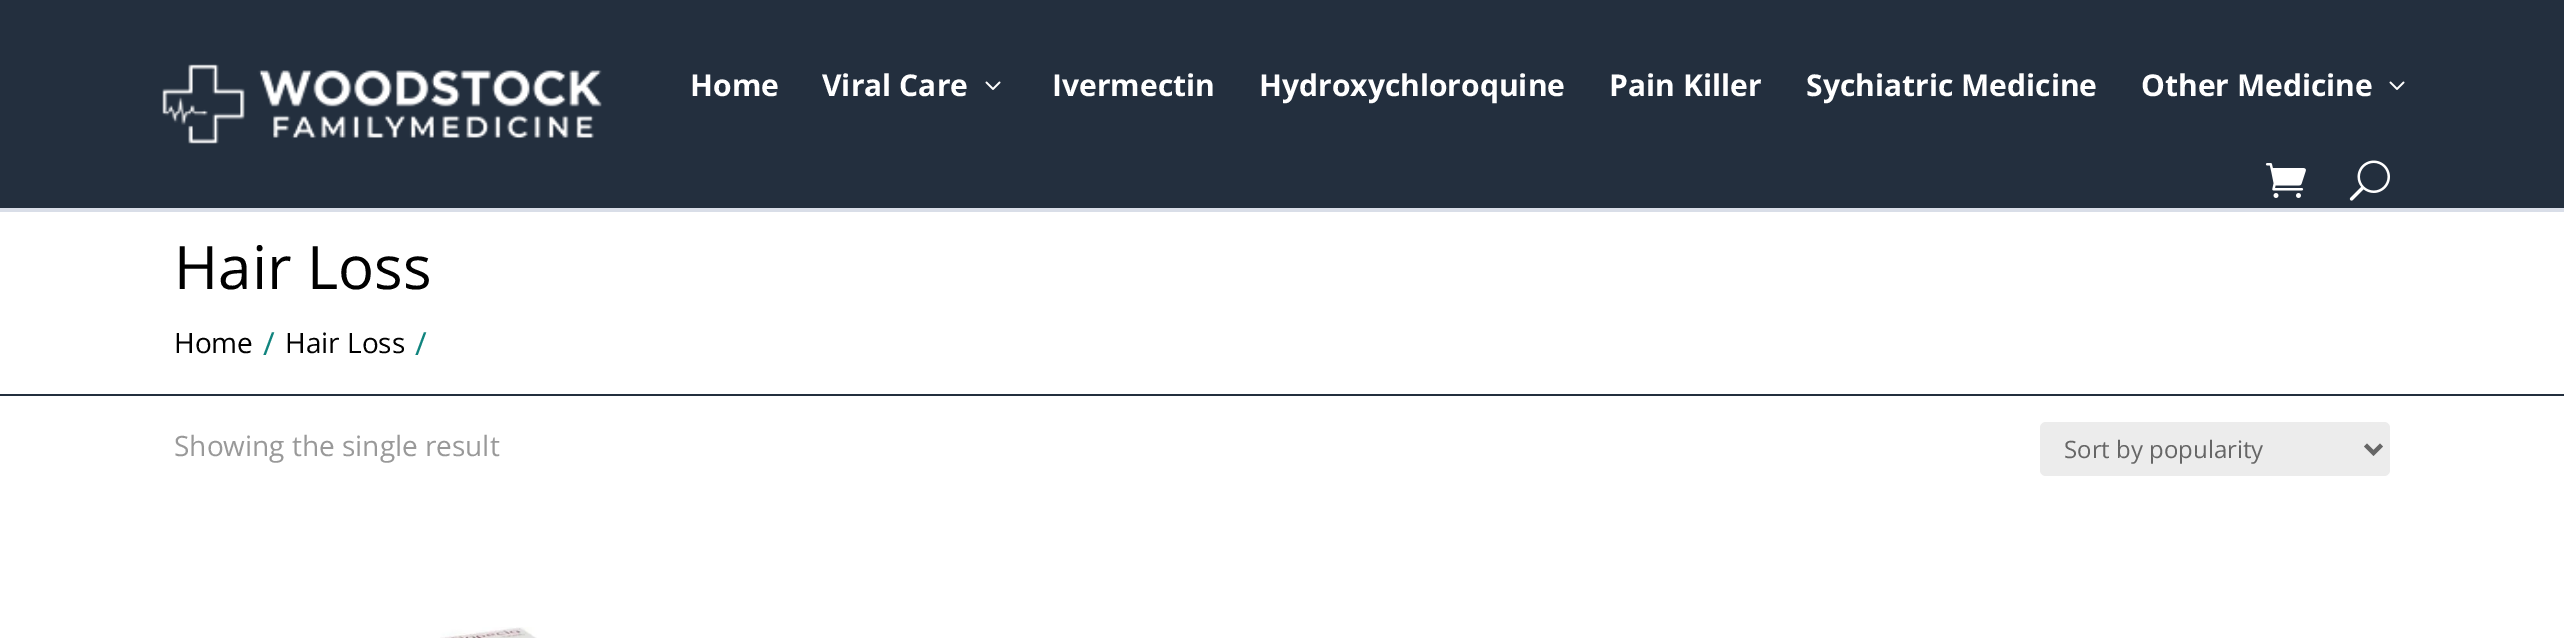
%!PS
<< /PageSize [2564 638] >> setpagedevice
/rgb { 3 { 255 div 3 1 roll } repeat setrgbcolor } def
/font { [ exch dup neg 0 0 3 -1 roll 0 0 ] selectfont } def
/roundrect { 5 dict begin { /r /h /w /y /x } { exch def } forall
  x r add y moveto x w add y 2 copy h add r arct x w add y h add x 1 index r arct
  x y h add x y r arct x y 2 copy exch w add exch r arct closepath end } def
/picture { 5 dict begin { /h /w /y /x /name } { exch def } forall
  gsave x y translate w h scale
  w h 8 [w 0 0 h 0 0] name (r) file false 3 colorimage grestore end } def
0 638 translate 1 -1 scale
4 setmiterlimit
255 255 255 rgb
0 0 2564 638 rectfill
35 47 62 rgb
0 0 2564 208 rectfill
217 222 232 rgb
0 208 2564 4 rectfill
(img/1.rgb) 162 64 440 80 picture
(img/2.rgb) 985 81 16 9 picture
(img/2.rgb) 2389 81 16 9 picture
(img/3.rgb) 2265 163 41 35 picture
(img/4.rgb) 2349 160 41 41 picture
35 47 62 rgb
0 394 2564 2 rectfill
236 236 236 rgb
2040 422 350 54 6 roundrect fill
102 102 102 rgb
4 setlinewidth
2365.5 445 moveto 2373.5 453 lineto 2381.5 445 lineto stroke
(img/5.rgb) 440 627 97 11 picture
/OpenSans-Bold 30 font
255 255 255 rgb
[
  [(Home) 690 96]
  [(Viral Care) 822 96]
  [(Ivermectin) 1052 96]
  [(Hydroxychloroquine) 1259 96]
  [(Pain Killer) 1609 96]
  [(Sychiatric Medicine) 1806 96]
  [(Other Medicine) 2141 96]
] { aload pop moveto show } forall
/OpenSans-Regular 60 font
0 0 0 rgb
174 289 moveto (Hair Loss) show
/OpenSans-Regular 28 font
174 353 moveto (Home) show
/OpenSans-Regular 32 font
16 132 126 rgb
263 355 moveto (/) show
/OpenSans-Regular 28 font
0 0 0 rgb
285 353 moveto (Hair Loss) show
/OpenSans-Regular 32 font
16 132 126 rgb
415 355 moveto (/) show
/OpenSans-Regular 28 font
153 153 153 rgb
174 456 moveto (Showing the single result) show
/OpenSans-Regular 24 font
102 102 102 rgb
2064 458 moveto (Sort by popularity) show
showpage
